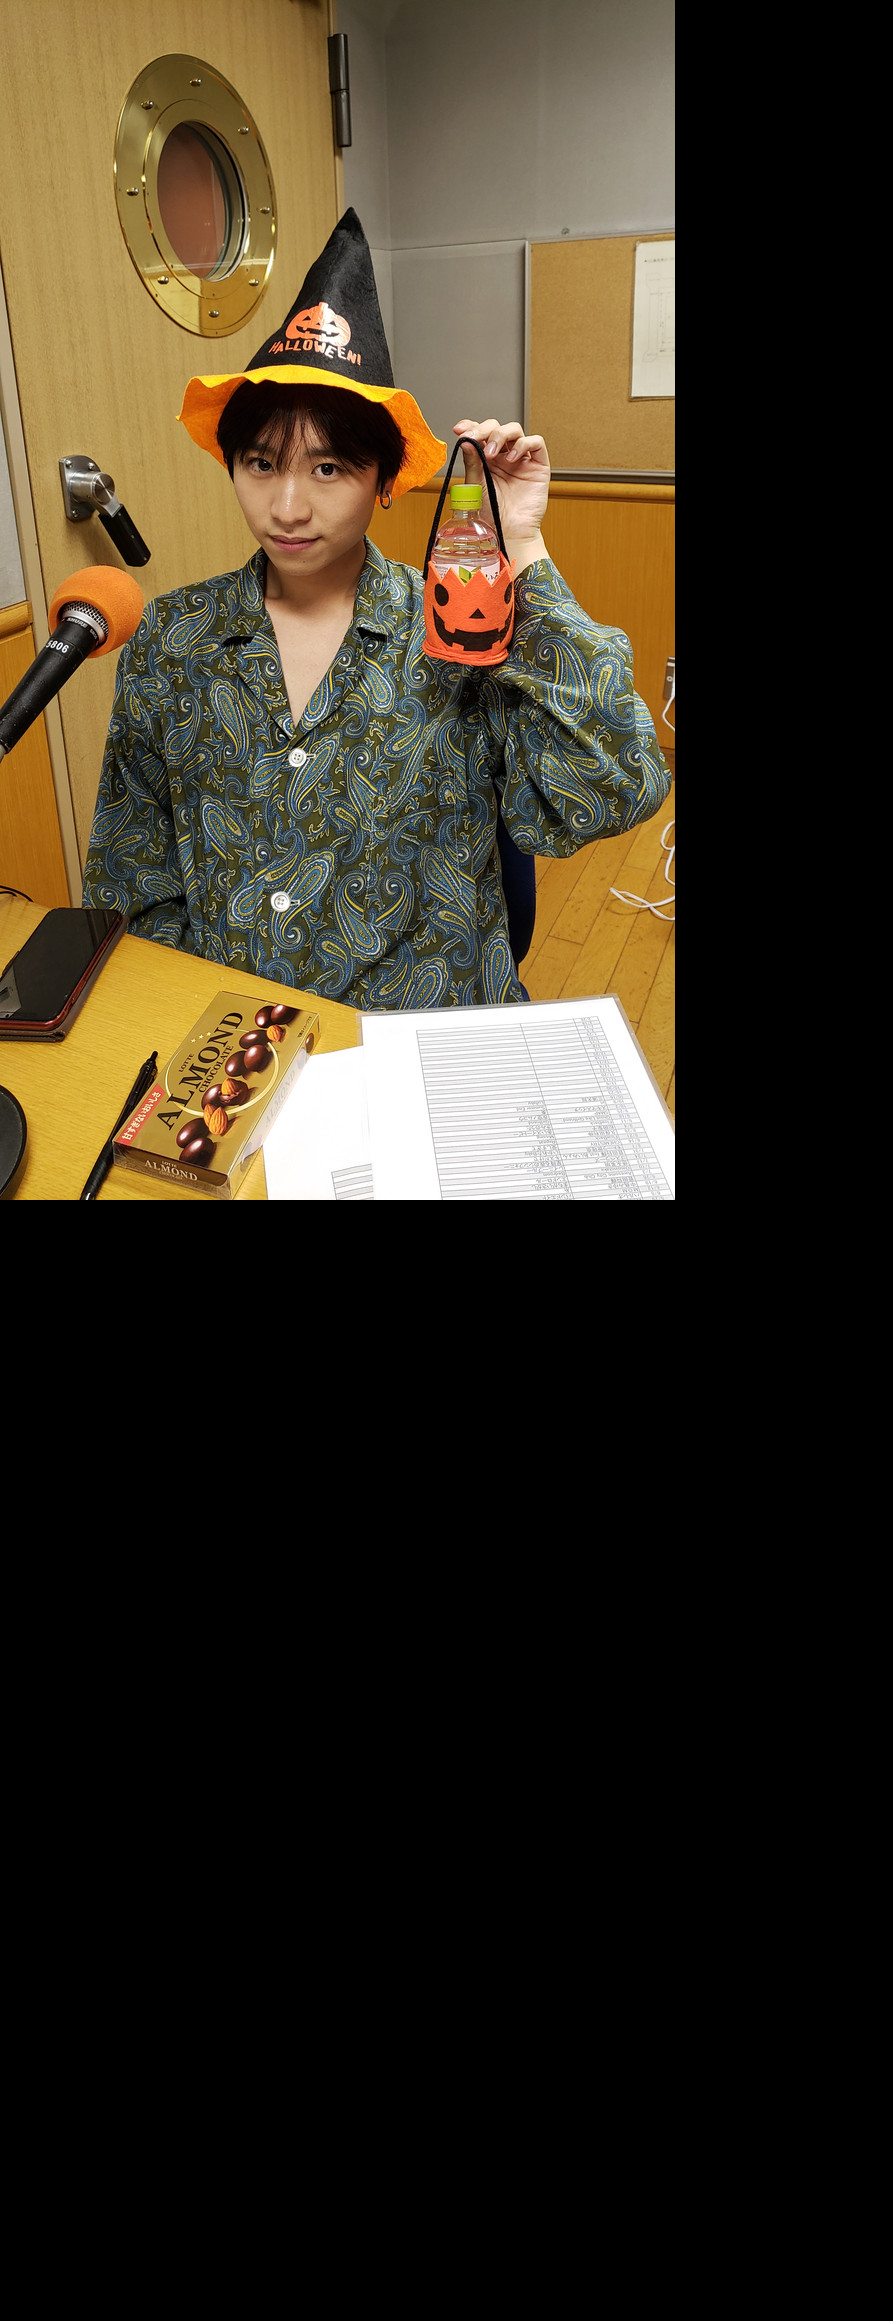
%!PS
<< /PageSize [893 2321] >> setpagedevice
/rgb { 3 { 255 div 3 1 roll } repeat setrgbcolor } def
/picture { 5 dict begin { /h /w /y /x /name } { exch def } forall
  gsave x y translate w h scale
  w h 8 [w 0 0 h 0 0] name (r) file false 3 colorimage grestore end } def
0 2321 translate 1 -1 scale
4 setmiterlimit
0 0 0 rgb
0 0 893 2321 rectfill
(img/1.rgb) 0 0 675 1200 picture
showpage
